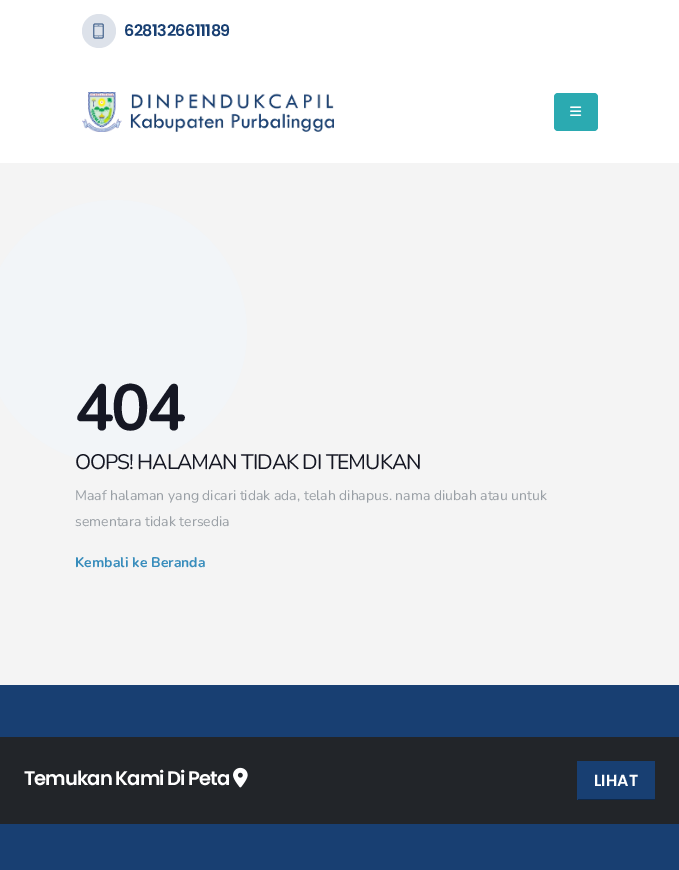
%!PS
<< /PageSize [679 870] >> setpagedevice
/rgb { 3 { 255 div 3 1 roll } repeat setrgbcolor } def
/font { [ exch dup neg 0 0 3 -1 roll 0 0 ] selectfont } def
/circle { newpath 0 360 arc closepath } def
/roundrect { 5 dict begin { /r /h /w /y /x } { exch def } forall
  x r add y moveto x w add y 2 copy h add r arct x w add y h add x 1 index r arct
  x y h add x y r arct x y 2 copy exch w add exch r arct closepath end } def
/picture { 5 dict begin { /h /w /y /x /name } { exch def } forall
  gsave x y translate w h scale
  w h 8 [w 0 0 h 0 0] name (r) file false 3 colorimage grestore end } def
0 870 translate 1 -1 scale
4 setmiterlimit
255 255 255 rgb
0 0 679 870 rectfill
221 226 234 rgb
99 31 17 circle fill
(img/1.rgb) 93 23 11 16 picture
(img/2.rgb) 82 92 252 40 picture
43 170 177 rgb
554 93 44 38 4 roundrect fill
(img/3.rgb) 570 106 12 10 picture
244 244 244 rgb
0 163 679 522 rectfill
242 245 248 rgb
115 332 132 circle fill
24 63 114 rgb
0 685 679 52 rectfill
34 37 41 rgb
0 737 679 87 rectfill
(img/4.rgb) 233 767 15 21 picture
[
  [578 761 77 38 24 63 114]
  [577 799 78 1 15 40 72]
  [577 761 1 39 24 63 114]
  [0 824 679 46 24 63 114]
] { aload pop rgb rectfill } forall
/Poppins-SemiBold 16 font
124 36 moveto -0.5 0 (6281326611189) ashow
/Nunito-Bold 65 font
21 23 35 rgb
75 430 moveto -3 0 (404) ashow
/Nunito-Regular 21 font
75 469 moveto -1.05 0 (OOPS! HALAMAN TIDAK DI TEMUKAN) ashow
/Nunito-Regular 14 font
153 159 165 rgb
75 500 moveto (Maaf halaman yang dicari tidak ada, telah dihapus. nama diubah atau untuk) show
75 526 moveto (sementara tidak tersedia) show
/Nunito-Bold 14 font
56 141 188 rgb
75 567 moveto (Kembali ke Beranda) show
/Poppins-SemiBold 19.6 font
255 255 255 rgb
24 785 moveto -1 0 (Temukan Kami Di Peta) ashow
/Poppins-SemiBold 16 font
594 786 moveto (LIHAT) show
showpage
